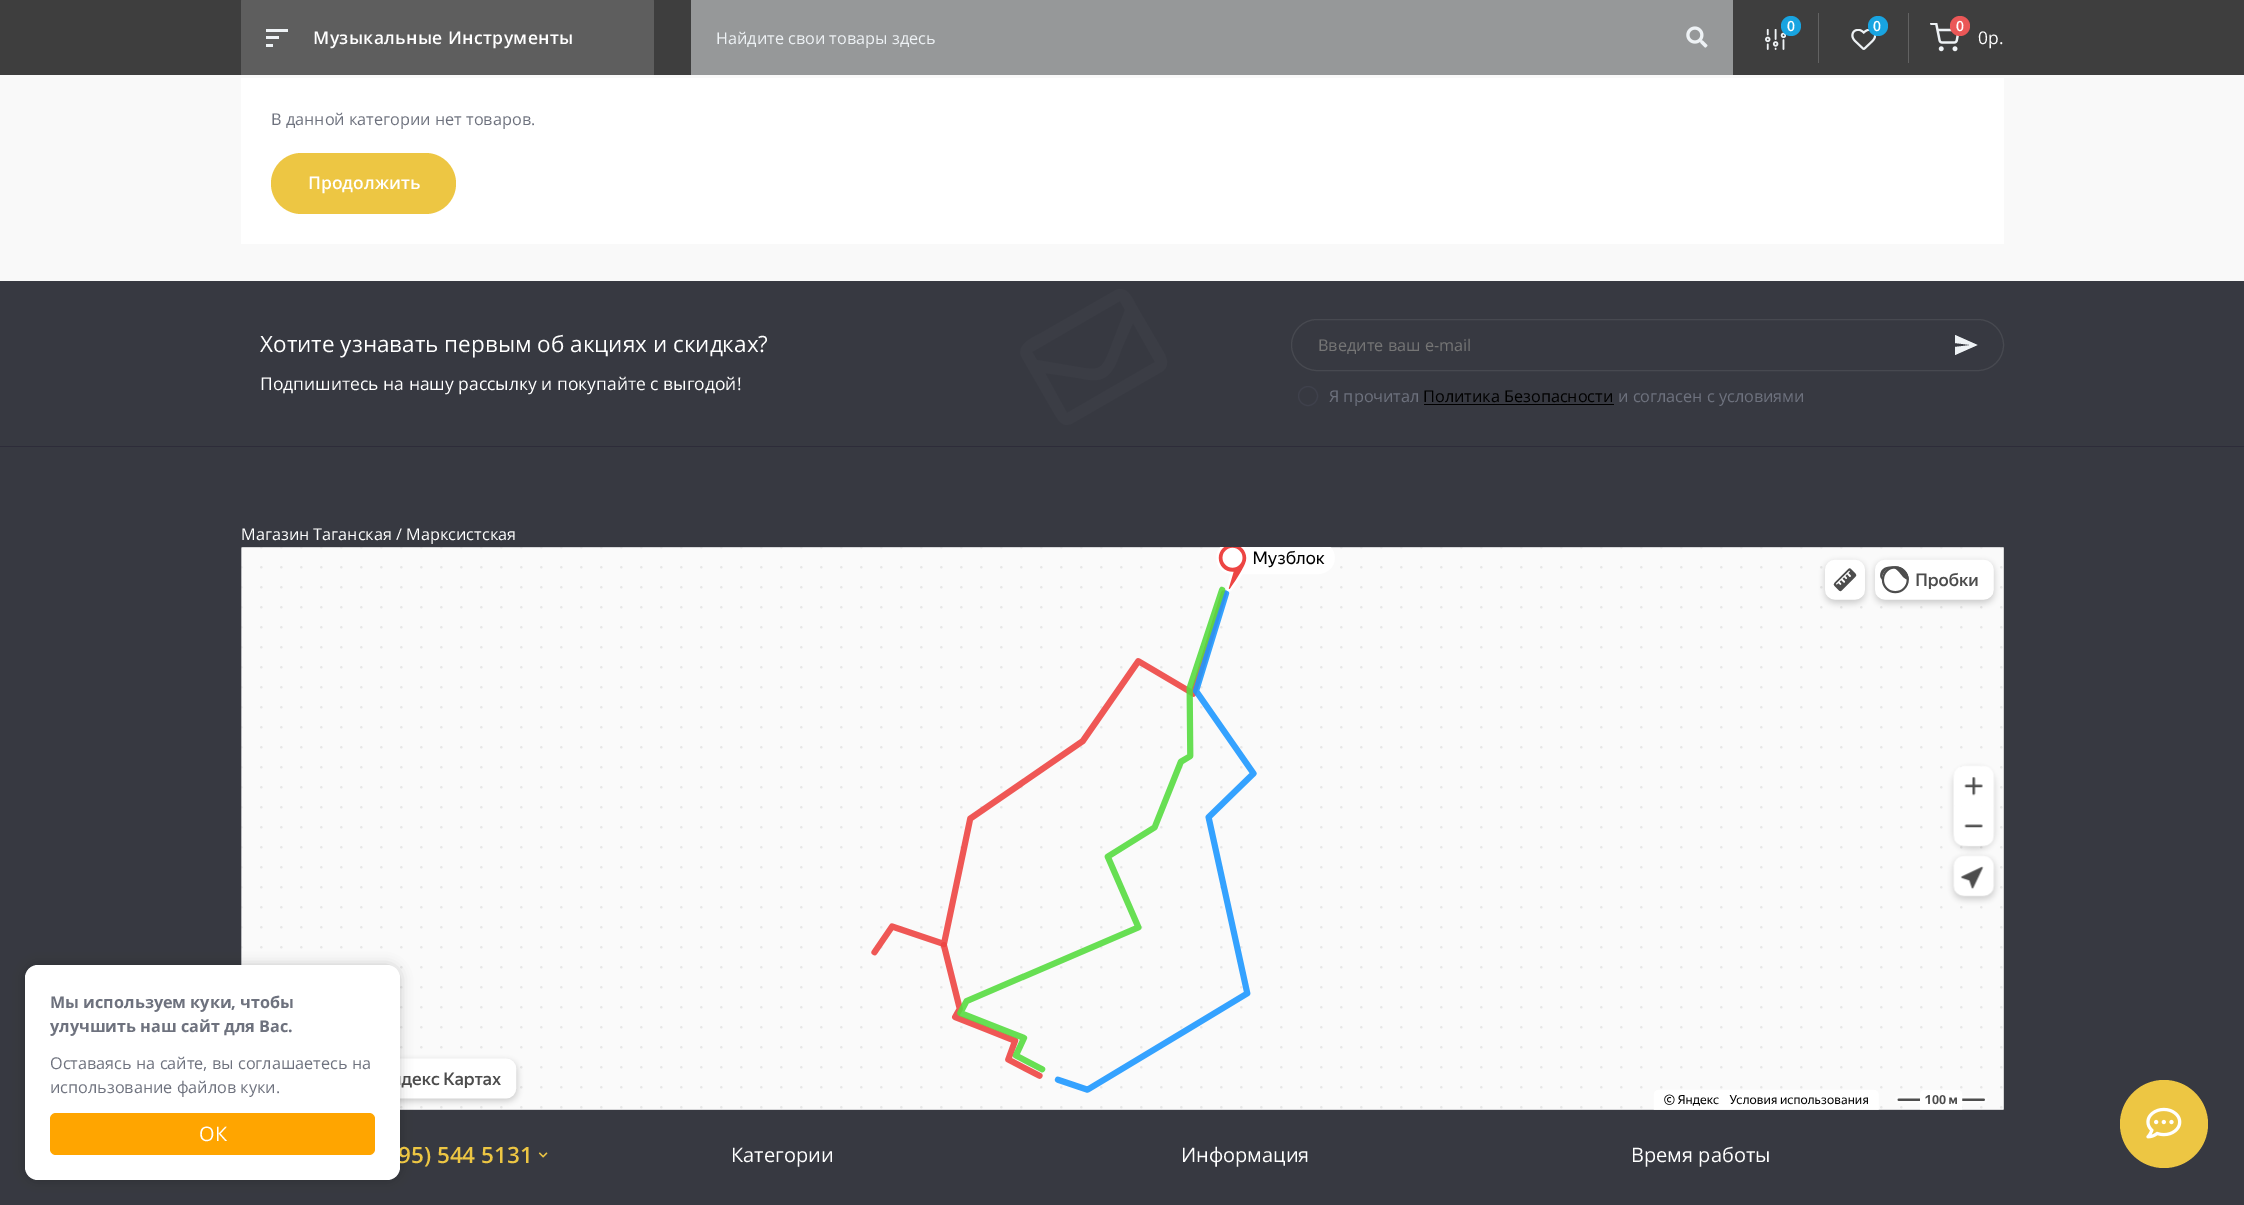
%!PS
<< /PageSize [2244 1205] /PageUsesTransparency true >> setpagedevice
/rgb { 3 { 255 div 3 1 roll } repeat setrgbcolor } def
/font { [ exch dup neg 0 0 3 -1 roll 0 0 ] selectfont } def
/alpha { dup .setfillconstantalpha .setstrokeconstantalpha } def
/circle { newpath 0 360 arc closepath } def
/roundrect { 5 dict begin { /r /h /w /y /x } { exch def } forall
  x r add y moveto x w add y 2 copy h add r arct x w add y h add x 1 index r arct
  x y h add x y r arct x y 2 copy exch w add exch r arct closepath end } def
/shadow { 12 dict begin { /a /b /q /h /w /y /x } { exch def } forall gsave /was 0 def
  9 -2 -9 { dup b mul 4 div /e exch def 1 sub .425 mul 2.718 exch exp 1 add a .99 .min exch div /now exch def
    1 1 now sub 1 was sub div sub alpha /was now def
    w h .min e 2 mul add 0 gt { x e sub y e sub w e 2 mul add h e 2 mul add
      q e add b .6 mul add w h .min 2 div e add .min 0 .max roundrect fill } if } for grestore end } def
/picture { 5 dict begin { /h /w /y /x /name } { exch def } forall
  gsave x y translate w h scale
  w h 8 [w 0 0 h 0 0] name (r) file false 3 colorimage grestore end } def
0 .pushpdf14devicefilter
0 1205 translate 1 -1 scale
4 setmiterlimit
249 249 249 rgb
0 0 2244 1205 rectfill
62 62 62 rgb
0 0 2244 75 rectfill
94 94 94 rgb
241 0 413 75 1 roundrect fill
[
  [266 29 22 3 238 242 245]
  [266 36 13 3 238 242 245]
  [266 44 7 3 238 242 245]
  [691 0 1042 75 150 152 153]
] { aload pop rgb rectfill } forall
(img/1.rgb) 1686 26 22 22 picture
(img/2.rgb) 1765 29 21 21 picture
24 164 225 rgb
1791 26 10 circle fill
98 98 98 rgb
1818 13 1 50 rectfill
(img/3.rgb) 1851 29 25 21 picture
24 164 225 rgb
1878 26 10 circle fill
98 98 98 rgb
1908 13 1 50 rectfill
(img/4.rgb) 1930 23 29 29 picture
235 87 87 rgb
1960 26 10 circle fill
255 255 255 rgb
241 78 1763 166 rectfill
237 198 67 rgb
271 153 185 61 30.5 roundrect fill
55 57 65 rgb
0 281 2244 924 rectfill
(img/5.rgb) 241 547 1763 563 picture
0 0 0 rgb
25 965 375 215 13 6 0.2 shadow
45 44 57 rgb
0 446 2244 1 rectfill
59 61 69 rgb
1114 291 moveto 1126 284 1132 297 1136 305 curveto 1160 346 lineto 1164 353 1172 363 1163 371 curveto 1073 423 lineto 1061 430 1056 416 1051 408 curveto 1021 356 lineto 1017 343 1034 337 1041 333 curveto closepath 1120 301 moveto 1032 352 lineto 1037 360 lineto 1084 368 lineto 1099 370 1102 368 1108 354 curveto 1125 310 lineto closepath 1067 413 moveto 1155 362 lineto 1133 323 lineto 1122 348 lineto 1117 361 1113 378 1097 380 curveto 1091 381 1084 379 1078 378 curveto 1045 373 lineto closepath fill
71 73 80 rgb
1291.5 319.5 712 51 25.5 roundrect stroke
238 242 245 rgb
1955 355 moveto 1955 347 lineto 1971 345 lineto 1955 343 lineto 1955 335 lineto 1977.5 345 lineto closepath fill
63 65 76 rgb
1308 396 9.5 circle stroke
0 0 0 rgb
1424 404 190 1 rectfill
(img/6.rgb) 538 1152 10 6 picture
237 198 67 rgb
2164 1124 44 circle fill
(img/7.rgb) 2146 1107 36 32 picture
/OpenSans-SemiBold 17.5 font
255 255 255 rgb
313 44 moveto 0.4 0 (Музыкальные Инструменты) ashow
/OpenSans-Regular 16.25 font
238 242 245 rgb
716 44 moveto (Найдите свои товары здесь) show
/OpenSans-SemiBold 14 font
255 255 255 rgb
[
  [(0) 1787 31]
  [(0) 1873 31]
  [(0) 1956 31]
] { aload pop moveto show } forall
/OpenSans-Regular 17.5 font
1978 44 moveto (0р.) show
/OpenSans-Regular 16.25 font
110 114 126 rgb
271 125 moveto (В данной категории нет товаров.) show
/OpenSans-SemiBold 17.5 font
255 255 255 rgb
308 189 moveto (Продолжить) show
/OpenSans-Regular 22.5 font
260 352 moveto (Хотите узнавать первым об акциях и скидках?) show
/OpenSans-Regular 17.5 font
260 390 moveto (Подпишитесь на нашу рассылку и покупайте с выгодой!) show
/OpenSans-Regular 16.25 font
117 117 117 rgb
1318 351 moveto (Введите ваш e-mail) show
110 114 126 rgb
1329 402 moveto (Я прочитал) show
0 0 0 rgb
1423 402 moveto (Политика Безопасности) show
110 114 126 rgb
1618 402 moveto (и согласен с условиями) show
255 255 255 rgb
241 540 moveto (Магазин Таганская / Марксистская) show
/OpenSans-SemiBold 22.5 font
237 198 67 rgb
398 1163 moveto (95\) 544 5131) show
255 255 255 rgb
25 965 375 215 13 roundrect fill
255 165 0 rgb
50 1113 325 42 6 roundrect fill
/OpenSans-Regular 20 font
255 255 255 rgb
199 1141 moveto (ОК) show
/OpenSans-Regular 16.25 font
110 114 126 rgb
50 1093 moveto (использование файлов куки.) show
50 1069 moveto (Оставаясь на сайте, вы соглашаетесь на) show
/OpenSans-Bold 16.25 font
50 1032 moveto (улучшить наш сайт для Вас.) show
50 1008 moveto (Мы используем куки, чтобы) show
/OpenSans-Regular 20 font
255 255 255 rgb
[
  [(Категории) 731 1162]
  [(Информация) 1181 1162]
  [(Время работы) 1631 1162]
] { aload pop moveto show } forall
.poppdf14devicefilter showpage
